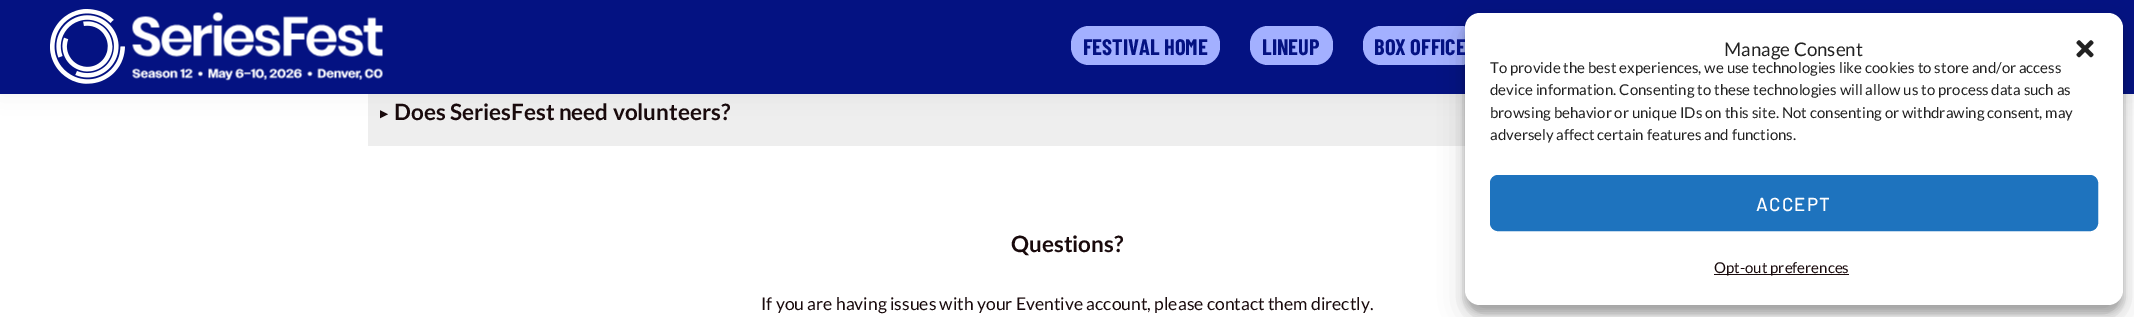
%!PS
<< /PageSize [2134 317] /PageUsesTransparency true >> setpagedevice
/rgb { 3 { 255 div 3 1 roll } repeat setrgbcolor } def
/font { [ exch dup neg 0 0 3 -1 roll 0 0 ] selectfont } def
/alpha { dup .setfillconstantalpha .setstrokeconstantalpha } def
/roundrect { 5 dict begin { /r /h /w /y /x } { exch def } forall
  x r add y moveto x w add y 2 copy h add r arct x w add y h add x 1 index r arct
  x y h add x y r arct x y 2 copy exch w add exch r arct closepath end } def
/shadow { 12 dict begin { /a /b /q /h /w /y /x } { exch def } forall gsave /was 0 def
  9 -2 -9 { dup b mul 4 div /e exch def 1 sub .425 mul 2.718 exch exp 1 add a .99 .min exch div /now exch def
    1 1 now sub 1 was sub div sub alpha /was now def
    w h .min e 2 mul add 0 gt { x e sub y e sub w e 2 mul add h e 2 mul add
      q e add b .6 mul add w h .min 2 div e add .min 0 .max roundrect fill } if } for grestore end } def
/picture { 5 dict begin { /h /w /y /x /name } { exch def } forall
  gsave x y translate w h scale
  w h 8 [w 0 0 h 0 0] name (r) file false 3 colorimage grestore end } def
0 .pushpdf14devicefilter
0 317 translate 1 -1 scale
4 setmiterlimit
255 255 255 rgb
0 0 2134 317 rectfill
238 238 238 rgb
368 94 1097 52 rectfill
0 0 0 rgb
0 0 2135 94 0 12.5 0.05 shadow
4 18 130 rgb
0 0 2134 94 rectfill
(img/1.rgb) 50 9 75 75 picture
(img/2.rgb) 132 12 251 69 picture
163 176 255 rgb
1071 26 149 39 18 roundrect fill
1250 26 83 39 18 roundrect fill
1363 26 116 39 18 roundrect fill
0 0 0 rgb
1465 20 658 293 15 4 0.23 shadow
1465 25 658 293 15 12.5 0.19 shadow
/BarlowCondensed-Bold 22.5 font
4 18 130 rgb
[
  [(FESTIVAL HOME) 1083 55]
  [(LINEUP) 1262 55]
  [(BOX OFFICE) 1374 55]
] { aload pop moveto show } forall
/DejaVuSans-Bold 10 font
25 10 12 rgb
380 117 moveto (▶) show
/Lato-Bold 22.5 font
394 120 moveto (Does SeriesFest need volunteers?) show
1011 252 moveto (Questions?) show
/Lato-Regular 17.5 font
761 310 moveto (If you are having issues with your Eventive account, please contact them directly.) show
255 255 255 rgb
1465 13 658 292 15 roundrect fill
/Lato-Regular 18.75 font
34 34 34 rgb
1724 56 moveto (Manage Consent) show
(img/3.rgb) 2076 40 18 18 picture
/Lato-Regular 15 font
[
  [(To provide the best experiences, we use technologies like cookies to store and/or access) 1490 73]
  [(device information. Consenting to these technologies will allow us to process data such as) 1490 95]
  [(browsing behavior or unique IDs on this site. Not consenting or withdrawing consent, may) 1490 118]
  [(adversely affect certain features and functions.) 1490 140]
] { aload pop moveto show } forall
30 115 190 rgb
1490.5 175.5 607 55 7.5 roundrect gsave fill grestore
stroke
/Barlow-Medium 18.75 font
255 255 255 rgb
1756 211 moveto 1.25 0 (ACCEPT) ashow
25 10 12 rgb
1714 274 135 1 rectfill
/Lato-Regular 15 font
1714 273 moveto (Opt-out preferences) show
.poppdf14devicefilter showpage
